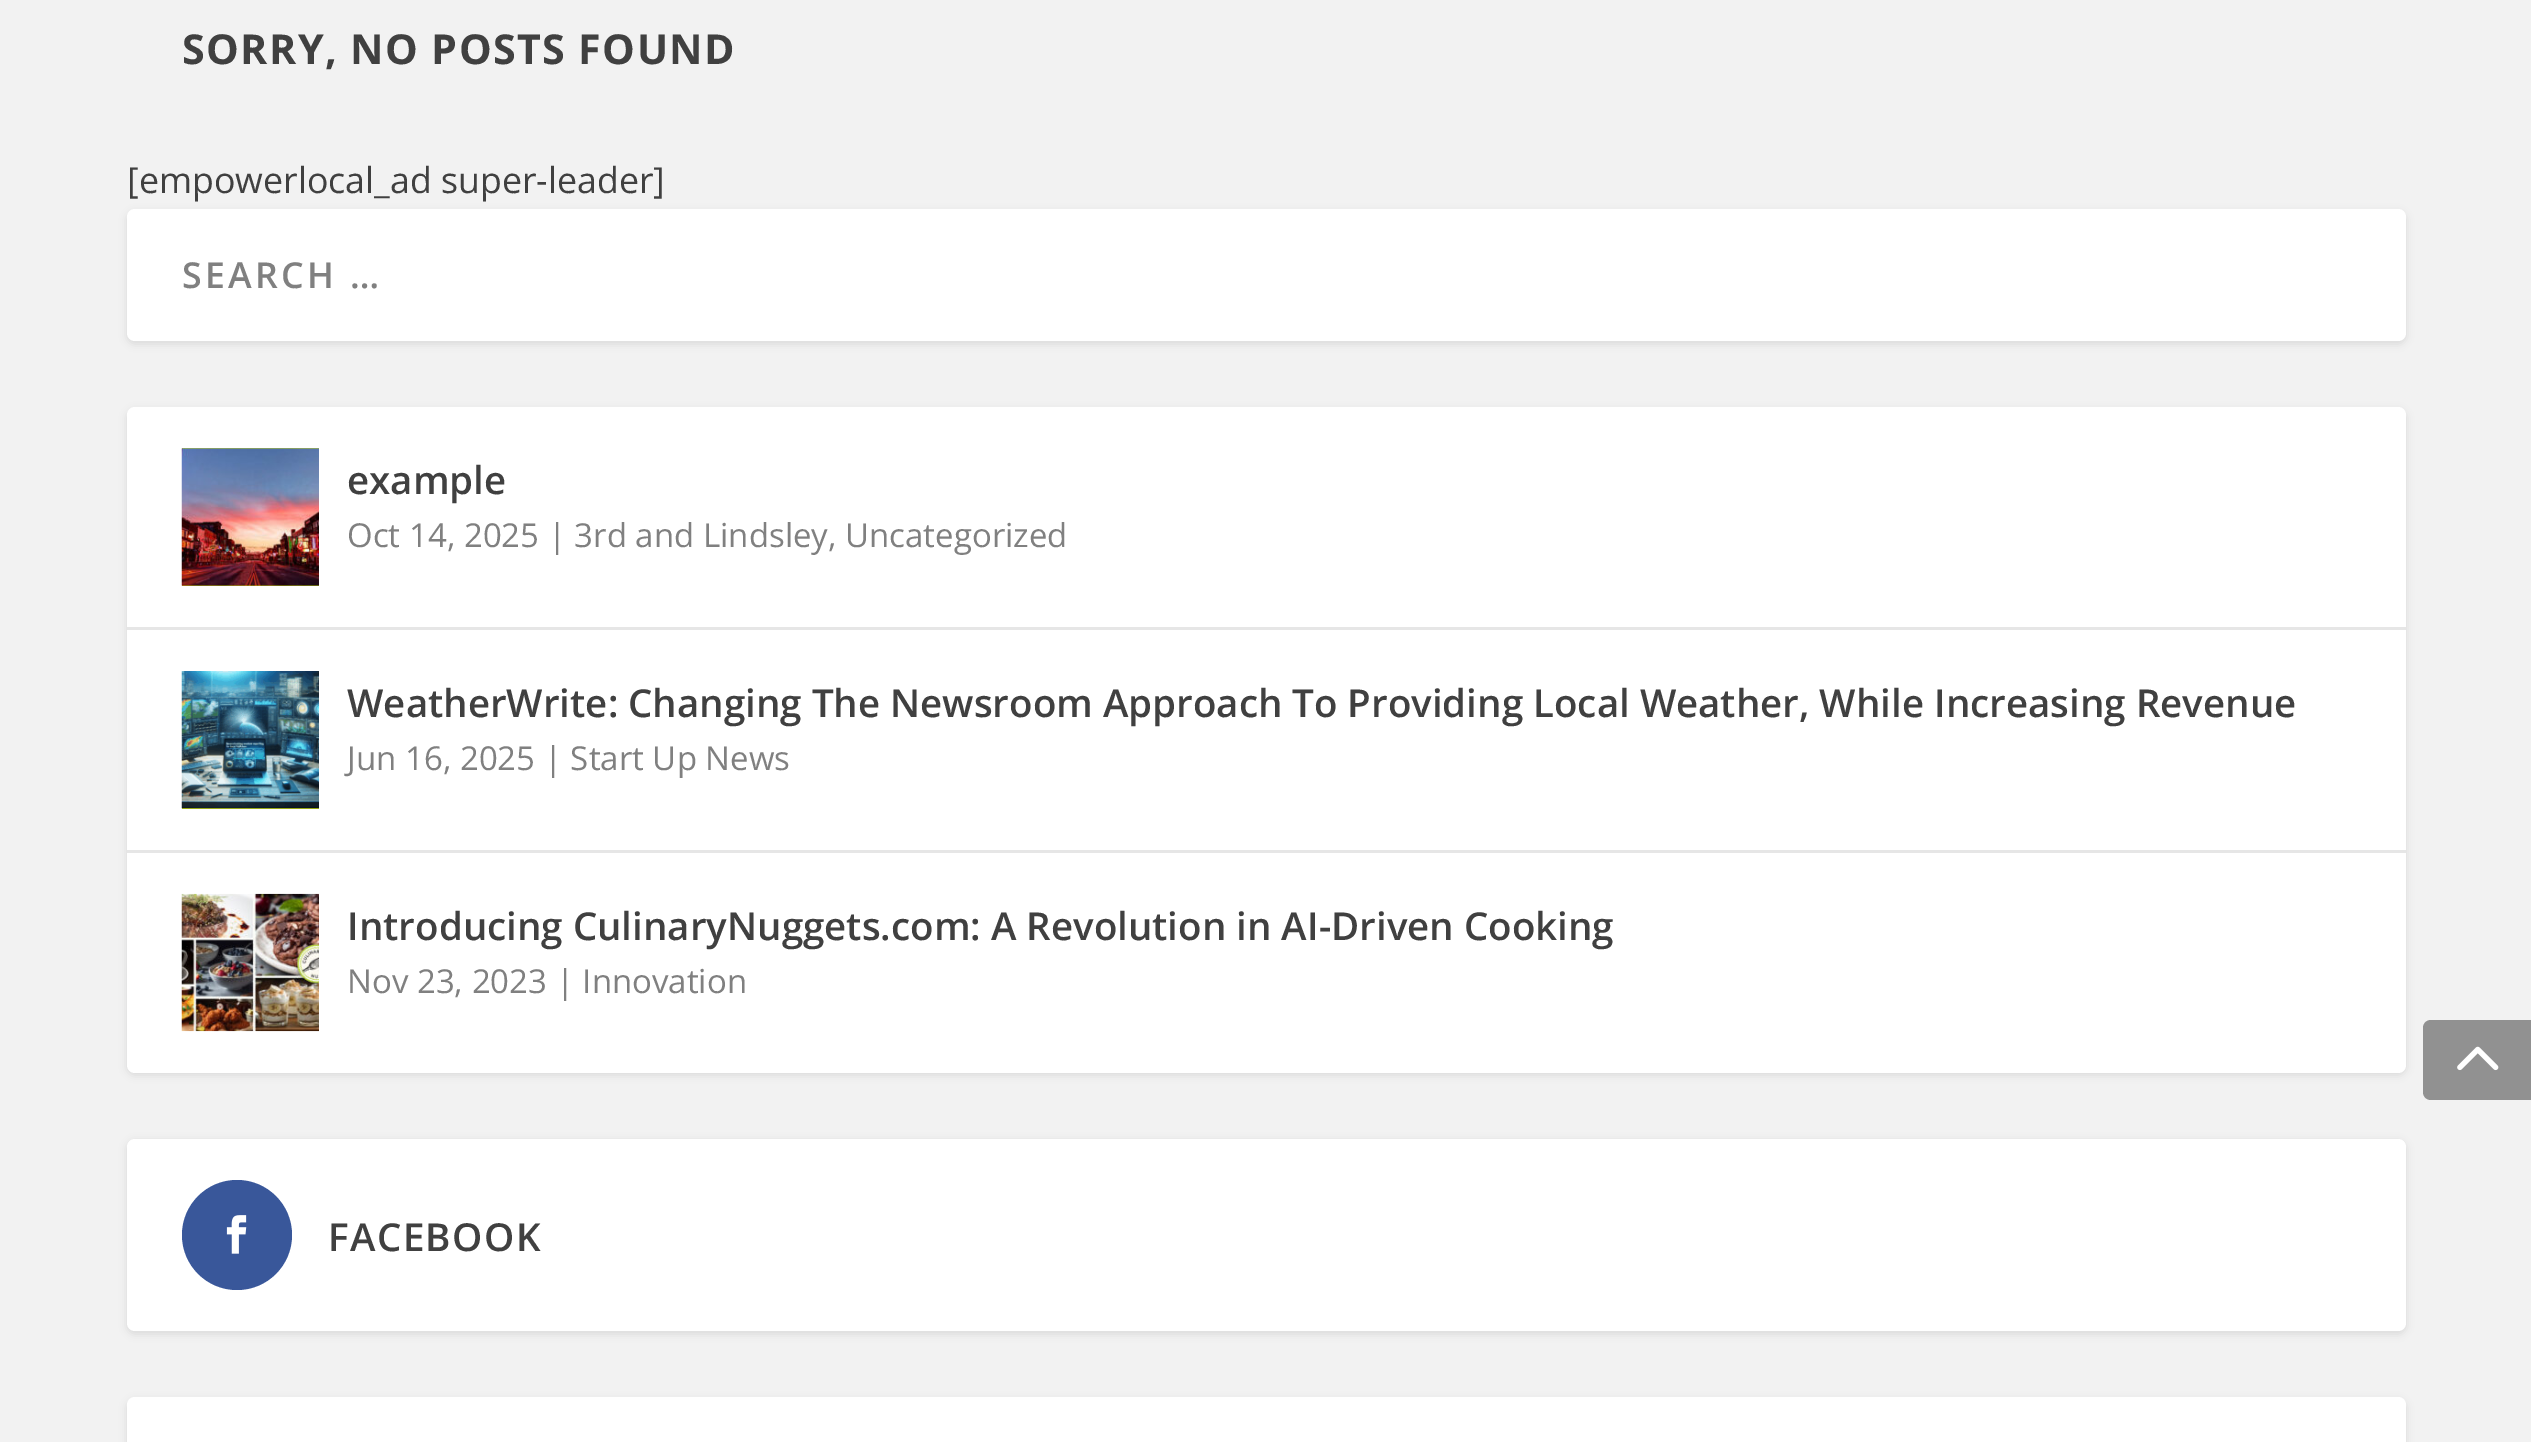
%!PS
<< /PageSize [2531 1442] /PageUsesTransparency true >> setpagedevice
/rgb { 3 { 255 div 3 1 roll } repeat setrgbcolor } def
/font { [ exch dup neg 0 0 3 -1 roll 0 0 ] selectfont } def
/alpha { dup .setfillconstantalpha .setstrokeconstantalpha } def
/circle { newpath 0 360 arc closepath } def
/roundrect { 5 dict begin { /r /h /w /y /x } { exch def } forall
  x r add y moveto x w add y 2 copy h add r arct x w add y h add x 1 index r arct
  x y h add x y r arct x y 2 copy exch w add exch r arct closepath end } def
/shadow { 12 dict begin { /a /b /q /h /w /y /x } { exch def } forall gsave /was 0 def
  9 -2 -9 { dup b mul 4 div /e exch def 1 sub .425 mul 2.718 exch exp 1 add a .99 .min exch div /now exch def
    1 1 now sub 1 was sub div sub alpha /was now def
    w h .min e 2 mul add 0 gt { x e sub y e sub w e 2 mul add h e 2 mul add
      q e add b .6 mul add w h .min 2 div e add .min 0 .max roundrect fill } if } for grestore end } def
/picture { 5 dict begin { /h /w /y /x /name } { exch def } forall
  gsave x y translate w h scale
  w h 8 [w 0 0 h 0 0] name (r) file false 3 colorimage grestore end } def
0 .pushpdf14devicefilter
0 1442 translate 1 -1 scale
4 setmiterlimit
242 242 242 rgb
0 0 2531 1442 rectfill
0 0 0 rgb
127 212 2279 132 8 4 0.1 shadow
255 255 255 rgb
127 209 2279 132 8 roundrect fill
0 0 0 rgb
127 410 2279 665 8 4 0.1 shadow
255 255 255 rgb
127 407 2279 666 8 roundrect fill
230 230 230 rgb
127 627 2279 3 rectfill
197 214 14 rgb
182 448 137 138 rectfill
(img/1.rgb) 181 448 138 138 picture
230 230 230 rgb
127 850 2279 3 rectfill
197 214 14 rgb
182 808 137 1 rectfill
(img/2.rgb) 181 671 138 138 picture
(img/3.rgb) 181 893 138 139 picture
0 0 0 rgb
127 1141 2279 193 8 4 0.1 shadow
255 255 255 rgb
127 1139 2279 192 8 roundrect fill
57 87 154 rgb
237 1235 55 circle fill
(img/4.rgb) 226 1215 21 39 picture
0 0 0 rgb
127 1400 2279 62 8 4 0.1 shadow
255 255 255 rgb
135 1397 moveto 2398 1397 lineto 2402.5 1397 2406 1400.5 2406 1405 curveto 2406 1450 lineto 127 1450 lineto 127 1405 lineto 127 1400.5 130.5 1397 135 1397 curveto closepath fill
145 145 145 rgb
2431 1020 moveto 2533 1020 lineto 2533 1100 lineto 2431 1100 lineto 2426.5 1100 2423 1096.5 2423 1092 curveto 2423 1028 lineto 2423 1023.5 2426.5 1020 2431 1020 curveto closepath fill
(img/5.rgb) 2457 1046 42 25 picture
/OpenSans-Bold 41.25 font
64 64 64 rgb
182 64 moveto 1.4 0 (SORRY, NO POSTS FOUND) ashow
/OpenSans-Regular 35.75 font
127 193 moveto ([empowerlocal_ad super-leader]) show
/OpenSans-SemiBold 35.75 font
128 128 128 rgb
182 288 moveto 3.25 0 (SEARCH …) ashow
/OpenSans-SemiBold 38.5 font
64 64 64 rgb
347 494 moveto (example) show
/OpenSans-Regular 33 font
128 128 128 rgb
347 547 moveto (Oct 14, 2025 | 3rd and Lindsley, Uncategorized) show
/OpenSans-SemiBold 38.5 font
64 64 64 rgb
347 717 moveto (WeatherWrite: Changing The Newsroom Approach To Providing Local Weather, While Increasing Revenue) show
/OpenSans-Regular 33 font
128 128 128 rgb
347 770 moveto (Jun 16, 2025 | Start Up News) show
/OpenSans-SemiBold 38.5 font
64 64 64 rgb
347 940 moveto (Introducing CulinaryNuggets.com: A Revolution in AI-Driven Cooking) show
/OpenSans-Regular 33 font
128 128 128 rgb
347 993 moveto (Nov 23, 2023 | Innovation) show
/OpenSans-SemiBold 38.5 font
64 64 64 rgb
328 1251 moveto 1.4 0 (FACEBOOK) ashow
.poppdf14devicefilter showpage
